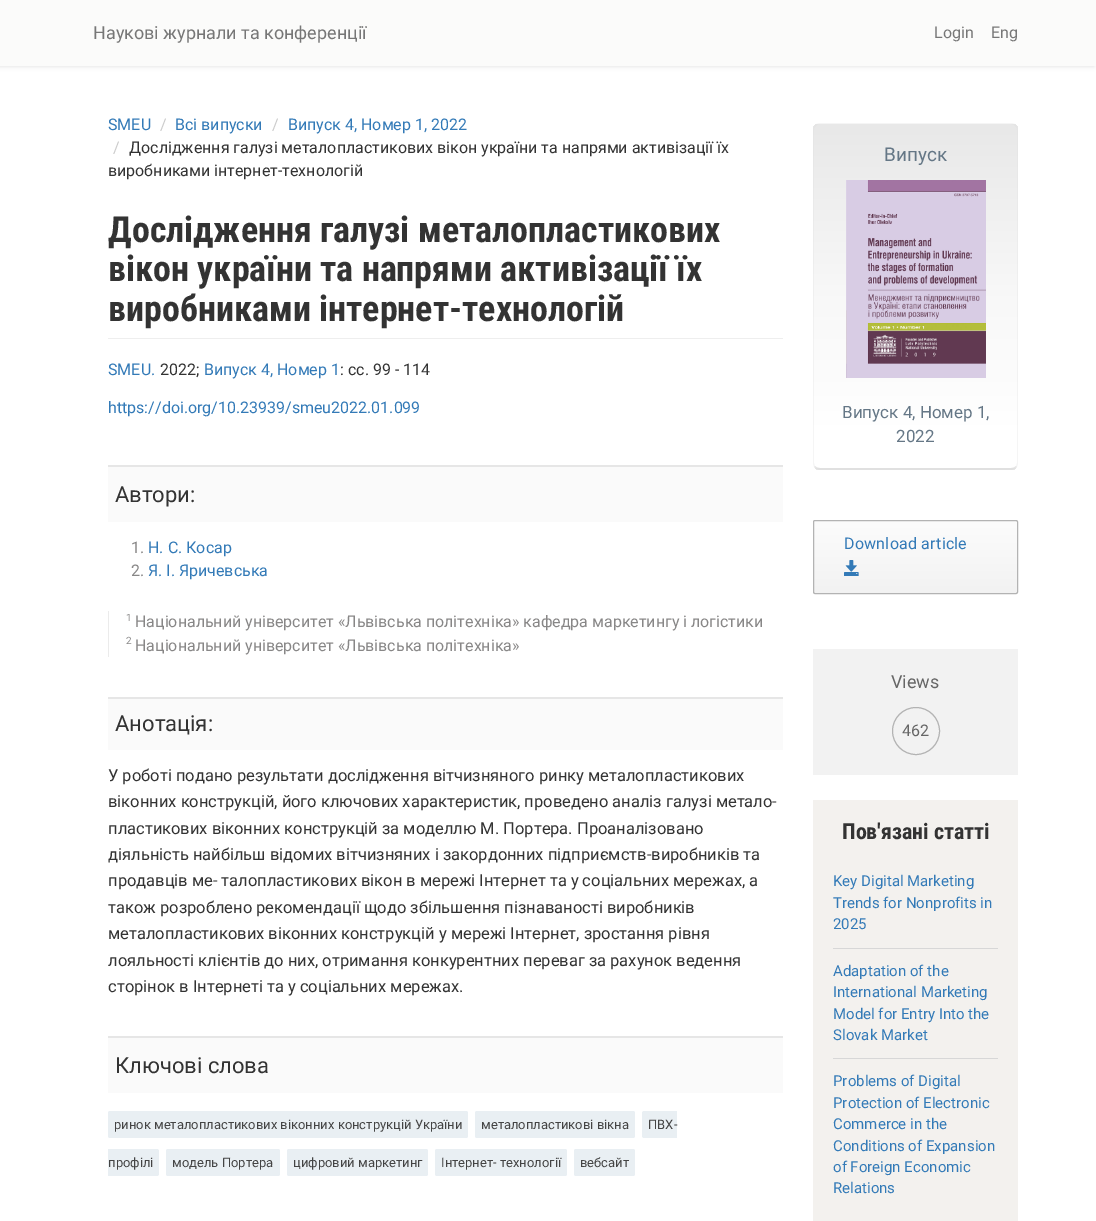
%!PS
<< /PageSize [1096 1221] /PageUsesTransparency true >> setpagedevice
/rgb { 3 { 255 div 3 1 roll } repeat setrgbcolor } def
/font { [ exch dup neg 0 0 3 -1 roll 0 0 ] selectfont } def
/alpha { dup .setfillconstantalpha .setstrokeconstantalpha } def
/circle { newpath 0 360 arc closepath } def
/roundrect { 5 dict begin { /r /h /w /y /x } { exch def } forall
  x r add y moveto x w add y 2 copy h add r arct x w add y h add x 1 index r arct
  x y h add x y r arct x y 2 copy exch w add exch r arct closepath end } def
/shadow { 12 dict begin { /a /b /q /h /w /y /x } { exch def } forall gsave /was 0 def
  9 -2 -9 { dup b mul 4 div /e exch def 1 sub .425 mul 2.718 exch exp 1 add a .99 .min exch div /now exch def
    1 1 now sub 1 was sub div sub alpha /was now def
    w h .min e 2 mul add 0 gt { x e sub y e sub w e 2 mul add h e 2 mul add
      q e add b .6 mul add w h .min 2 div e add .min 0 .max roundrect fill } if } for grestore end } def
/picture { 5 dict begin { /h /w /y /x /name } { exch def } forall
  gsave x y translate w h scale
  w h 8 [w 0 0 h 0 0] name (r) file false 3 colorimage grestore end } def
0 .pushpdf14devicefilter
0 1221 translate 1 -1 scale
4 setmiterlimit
255 255 255 rgb
0 0 1096 1221 rectfill
220 220 220 rgb
-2 0 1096 66 0 2.5 1 shadow
[
  [0 0 1096 66 251 251 250]
  [108 338 675 1 238 238 238]
  [108 467 675 55 250 250 250]
  [108 465 675 2 230 230 230]
  [108 611 1 46 235 235 235]
  [108 699 675 51 250 250 250]
  [108 697 675 2 230 230 230]
  [108 1038 675 55 250 250 250]
  [108 1036 675 2 230 230 230]
] { aload pop rgb rectfill } forall
233 239 243 rgb
108 1111 360 27 2 roundrect fill
475 1111 160 27 2 roundrect fill
644 1111 moveto 677 1111 lineto 677 1138 lineto 644 1138 lineto 643 1138 642 1137 642 1136 curveto 642 1113 lineto 642 1112 643 1111 644 1111 curveto closepath fill
108 1149 moveto 157 1149 lineto 158 1149 159 1150 159 1151 curveto 159 1174 lineto 159 1175 158 1176 157 1176 curveto 108 1176 lineto closepath fill
166 1149 114 27 2 roundrect fill
287 1149 141 27 2 roundrect fill
435 1149 132 27 2 roundrect fill
574 1149 61 27 2 roundrect fill
gsave
813 123 205 347 7 roundrect clip newpath
gsave 813 124 moveto 1018 124 lineto 1018 468 lineto 813 468 lineto closepath clip newpath
<< /ShadingType 2 /ColorSpace /DeviceRGB /Coords [916 468 916 124] /Extend [true true] /Function << /FunctionType 3 /Domain [0 1] /Functions [<< /FunctionType 2 /Domain [0 1] /C0 [1 1 1] /C1 [1 1 1] /N 1 >> << /FunctionType 2 /Domain [0 1] /C0 [1 1 1] /C1 [0.973 0.973 0.973] /N 1 >> << /FunctionType 2 /Domain [0 1] /C0 [0.973 0.973 0.973] /C1 [0.91 0.91 0.91] /N 1 >>] /Bounds [0.1 0.5] /Encode [0 1 0 1 0 1] >> >> shfill grestore
gsave 813 468 moveto 1018 468 lineto 1018 470 lineto 813 470 lineto closepath clip newpath
<< /ShadingType 2 /ColorSpace /DeviceRGB /Coords [916 812 916 468] /Extend [true true] /Function << /FunctionType 3 /Domain [0 1] /Functions [<< /FunctionType 2 /Domain [0 1] /C0 [1 1 1] /C1 [1 1 1] /N 1 >> << /FunctionType 2 /Domain [0 1] /C0 [1 1 1] /C1 [0.973 0.973 0.973] /N 1 >> << /FunctionType 2 /Domain [0 1] /C0 [0.973 0.973 0.973] /C1 [0.91 0.91 0.91] /N 1 >>] /Bounds [0.1 0.5] /Encode [0 1 0 1 0 1] >> >> shfill grestore
grestore
0.29 alpha
221 221 221 rgb
820 123 moveto 818 123 816 124 815 125 curveto 816 126 lineto 817 125 818 124 820 124 curveto 1011 124 lineto 1012 124 1014 125 1015 126 curveto 1016 125 lineto 1015 124 1013 123 1011 123 curveto closepath fill
1018 463 moveto 1018 130 lineto 1018 128 1017 126 1016 125 curveto 1015 126 lineto 1016 127 1017 128 1017 130 curveto 1017 463 lineto 1016 466 lineto 1017 467 lineto 1017 466 1018 465 1018 463 curveto closepath fill
0.72 alpha
820 470 moveto 1011 470 lineto 1013 470 1015 469 1017 467 curveto 1016 466 lineto 1015 467 1013 468 1011 468 curveto 820 468 lineto 818 468 816 467 815 466 curveto 814 467 lineto 816 469 818 470 820 470 curveto closepath fill
0.29 alpha
813 130 moveto 813 463 lineto 813 465 814 466 814 467 curveto 815 466 lineto 814 463 lineto 814 130 lineto 814 128 815 127 816 126 curveto 815 125 lineto 814 126 813 128 813 130 curveto closepath fill
1 alpha
(img/1.rgb) 846 180 140 198 picture
gsave
813 520 205 74 2 roundrect clip newpath
gsave 813 521 moveto 1018 521 lineto 1018 593 lineto 813 593 lineto closepath clip newpath
<< /ShadingType 2 /ColorSpace /DeviceRGB /Coords [916 521 916 593] /Extend [true true] /Function << /FunctionType 2 /Domain [0 1] /C0 [0.988 0.988 0.988] /C1 [0.949 0.949 0.949] /N 1 >> >> shfill grestore
grestore
179 179 179 rgb
813.5 520.5 204 73 1.5 roundrect stroke
(img/2.rgb) 844 560 15 16 picture
242 242 242 rgb
813 649 205 126 rectfill
179 179 179 rgb
916 731 23.5 circle stroke
[
  [813 800 205 421 243 241 238]
  [833 948 165 1 215 215 215]
  [833 1058 165 1 215 215 215]
] { aload pop rgb rectfill } forall
/Roboto-Regular 18 font
119 119 119 rgb
93 39 moveto (Наукові журнали та конференції) show
/Roboto-Regular 16 font
934 38 moveto (Login) show
991 38 moveto (Eng) show
51 122 183 rgb
108 130 moveto (SMEU) show
204 204 204 rgb
160 130 moveto (/) show
51 122 183 rgb
175 130 moveto (Всі випуски) show
204 204 204 rgb
272 130 moveto (/) show
51 122 183 rgb
288 130 moveto (Випуск 4, Номер 1, 2022) show
204 204 204 rgb
113 153 moveto (/) show
51 51 51 rgb
129 153 moveto (Дослідження галузі металопластикових вікон україни та напрями активізації їх) show
108 176 moveto (виробниками інтернет-технологій) show
/RobotoCondensed-Bold 36 font
[
  [(Дослідження галузі металопластикових) 108 242]
  [(вікон україни та напрями активізації їх) 108 281]
  [(виробниками інтернет-технологій) 108 321]
] { aload pop moveto show } forall
/Roboto-Regular 16 font
51 122 183 rgb
108 375 moveto (SMEU.) show
51 51 51 rgb
160 375 moveto (2022;) show
51 122 183 rgb
204 375 moveto (Випуск 4, Номер 1) show
51 51 51 rgb
340 375 moveto (: cc. 99 - 114) show
51 122 183 rgb
108 413 moveto (https://doi.org/10.23939/smeu2022.01.099) show
/Roboto-Regular 22 font
51 51 51 rgb
115 502 moveto (Автори:) show
/Roboto-Regular 16 font
136 135 135 rgb
131 553 moveto (1.) show
51 122 183 rgb
148 553 moveto (Н. С. Косар) show
136 135 135 rgb
131 576 moveto (2.) show
51 122 183 rgb
148 576 moveto (Я. І. Яричевська) show
/Roboto-Regular 10 font
136 135 135 rgb
126 621 moveto (1) show
/Roboto-Regular 16 font
135 627 moveto (Національний університет «Львівська політехніка» кафедра маркетингу і логістики) show
/Roboto-Regular 10 font
126 644 moveto (2) show
/Roboto-Regular 16 font
135 651 moveto (Національний університет «Львівська політехніка») show
/Roboto-Regular 22 font
51 51 51 rgb
115 731 moveto (Анотація:) show
/Roboto-Regular 16.5 font
[
  [(У роботі подано результати дослідження вітчизняного ринку металопластикових) 108 781]
  [(віконних конструкцій, його ключових характеристик, проведено аналіз галузі метало-) 108 807]
  [(пластикових віконних конструкцій за моделлю М. Портера. Проаналізовано) 108 834]
  [(діяльність найбільш відомих вітчизняних і закордонних підприємств-виробників та) 108 860]
  [(продавців ме- талопластикових вікон в мережі Інтернет та у соціальних мережах, а) 108 886]
  [(також розроблено рекомендації щодо збільшення пізнаваності виробників) 108 913]
  [(металопластикових віконних конструкцій у мережі Інтернет, зростання рівня) 108 939]
  [(лояльності клієнтів до них, отримання конкурентних переваг за рахунок ведення) 108 966]
  [(сторінок в Інтернеті та у соціальних мережах.) 108 992]
] { aload pop moveto show } forall
/Roboto-Regular 22 font
115 1073 moveto (Ключові слова) show
/Roboto-Regular 13 font
68 68 68 rgb
[
  [(ринок металопластикових віконних конструкцій України) 114 1129]
  [(металопластикові вікна) 481 1129]
  [(ПВХ-) 648 1129]
  [(профілі) 108 1167]
  [(модель Портера) 172 1167]
  [(цифровий маркетинг) 293 1167]
  [(Інтернет- технології) 441 1167]
  [(вебсайт) 580 1167]
] { aload pop moveto show } forall
/Roboto-Regular 19 font
101 119 134 rgb
884 161 moveto (Випуск) show
/Roboto-Regular 17 font
842 418 moveto (Випуск 4, Номер 1,) show
896 442 moveto (2022) show
/Roboto-Regular 16 font
51 122 183 rgb
844 549 moveto 0.25 0 (Download article) ashow
/Roboto-Regular 18 font
102 102 102 rgb
891 688 moveto (Views) show
/Roboto-Regular 16 font
902 736 moveto (462) show
/RobotoCondensed-Bold 22 font
51 51 51 rgb
842 839 moveto (Пов'язані статті) show
/Roboto-Regular 15 font
51 122 183 rgb
[
  [(Key Digital Marketing) 833 886]
  [(Trends for Nonprofits in) 833 908]
  [(2025) 833 929]
  [(Adaptation of the) 833 976]
  [(International Marketing) 833 997]
  [(Model for Entry Into the) 833 1019]
  [(Slovak Market) 833 1040]
  [(Problems of Digital) 833 1086]
  [(Protection of Electronic) 833 1108]
  [(Commerce in the) 833 1129]
  [(Conditions of Expansion) 833 1151]
  [(of Foreign Economic) 833 1172]
  [(Relations) 833 1193]
] { aload pop moveto show } forall
.poppdf14devicefilter showpage
